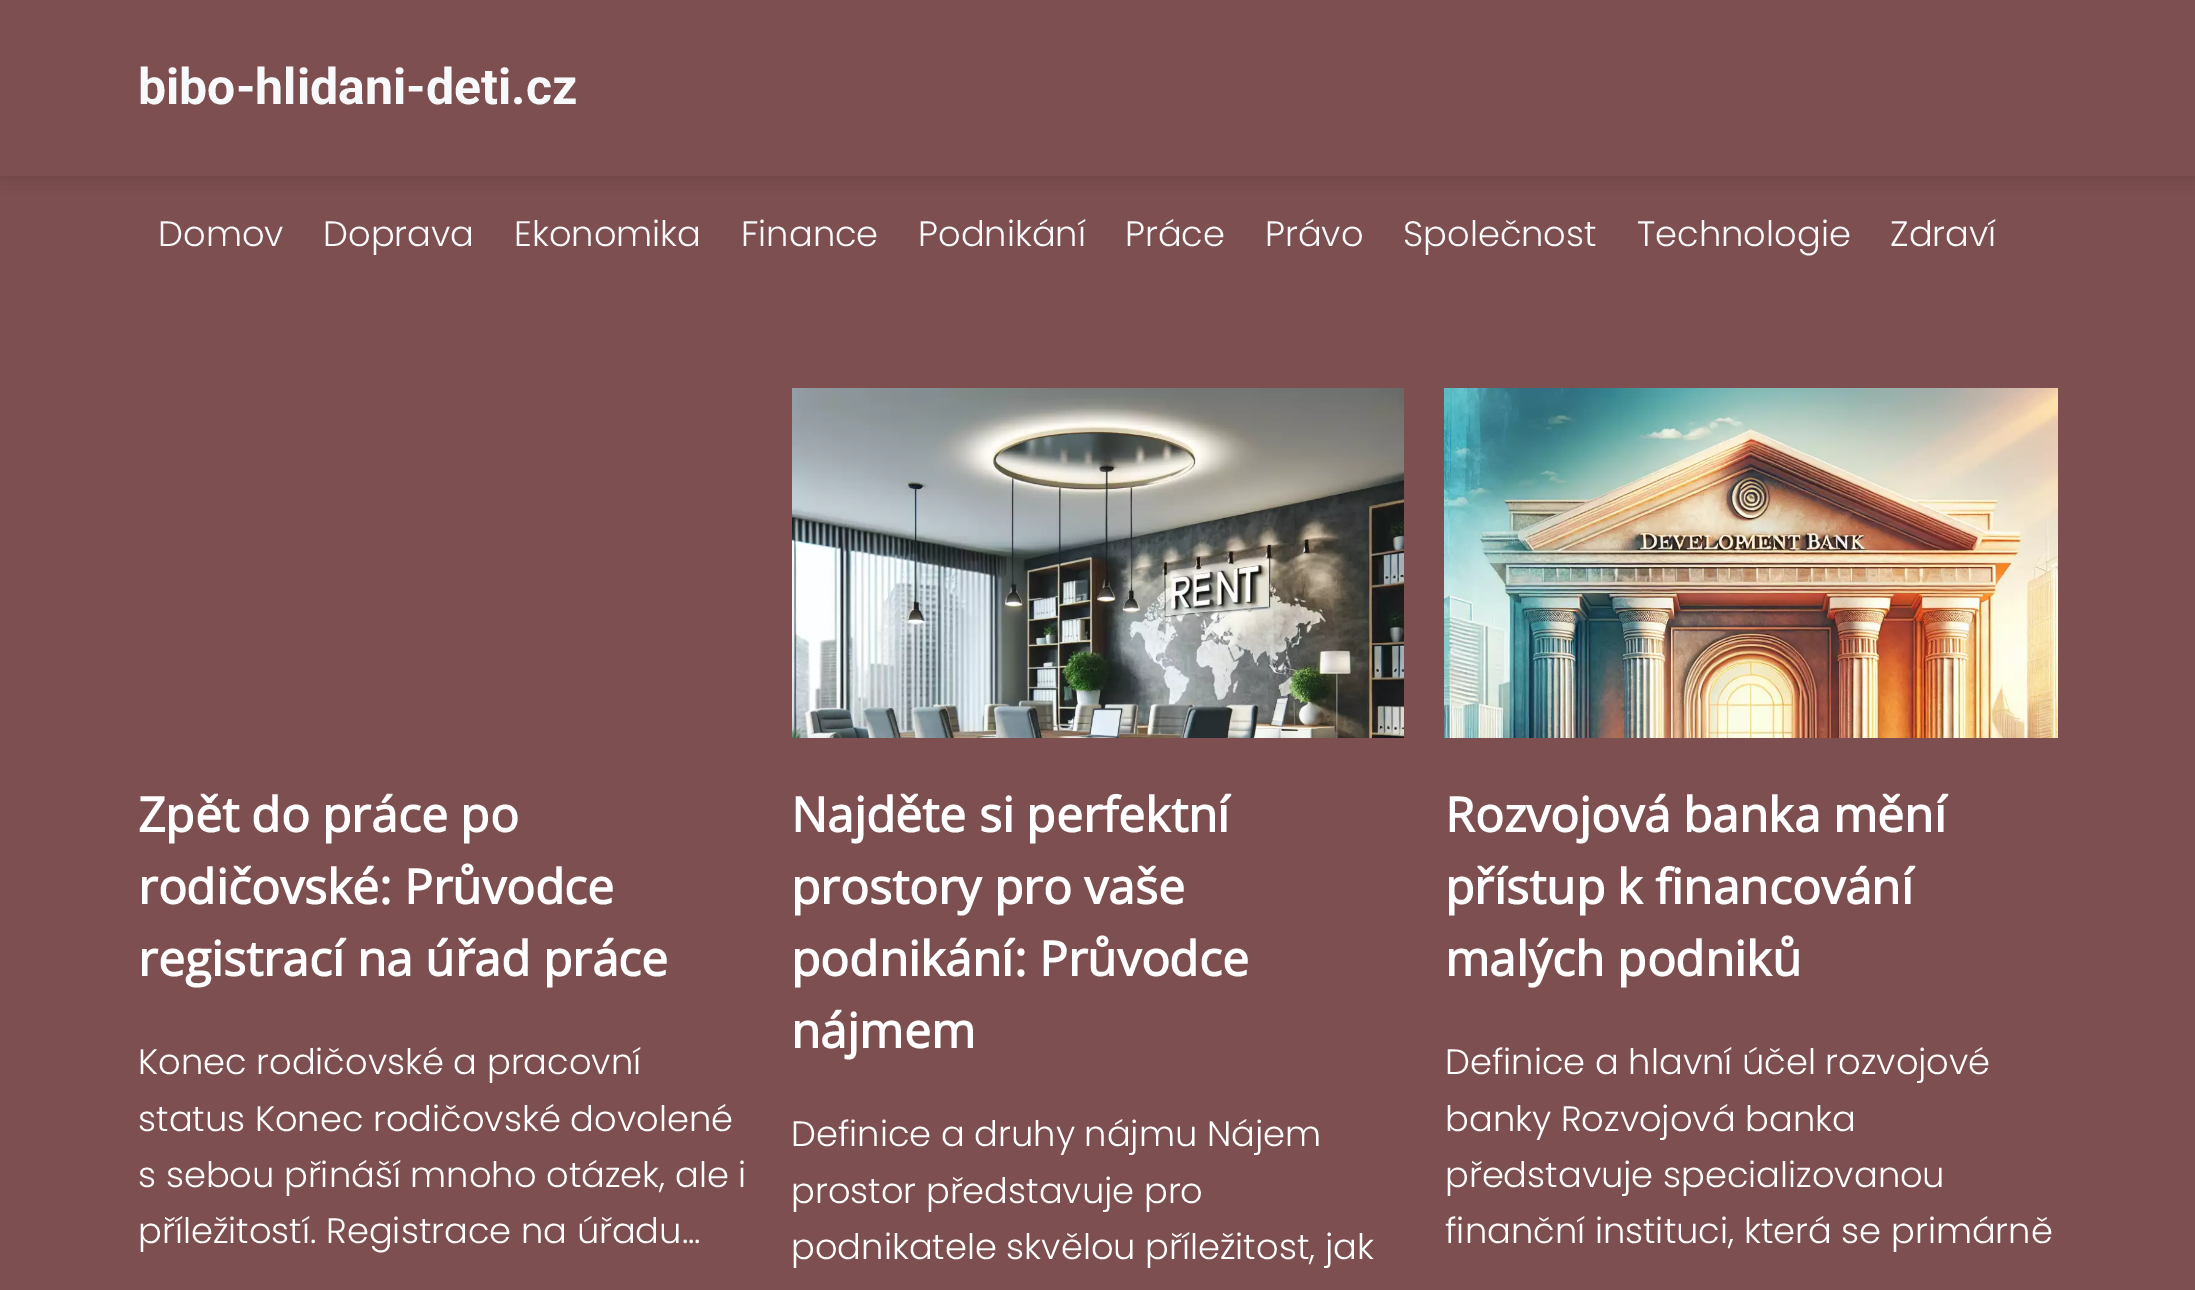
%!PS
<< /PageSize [2195 1290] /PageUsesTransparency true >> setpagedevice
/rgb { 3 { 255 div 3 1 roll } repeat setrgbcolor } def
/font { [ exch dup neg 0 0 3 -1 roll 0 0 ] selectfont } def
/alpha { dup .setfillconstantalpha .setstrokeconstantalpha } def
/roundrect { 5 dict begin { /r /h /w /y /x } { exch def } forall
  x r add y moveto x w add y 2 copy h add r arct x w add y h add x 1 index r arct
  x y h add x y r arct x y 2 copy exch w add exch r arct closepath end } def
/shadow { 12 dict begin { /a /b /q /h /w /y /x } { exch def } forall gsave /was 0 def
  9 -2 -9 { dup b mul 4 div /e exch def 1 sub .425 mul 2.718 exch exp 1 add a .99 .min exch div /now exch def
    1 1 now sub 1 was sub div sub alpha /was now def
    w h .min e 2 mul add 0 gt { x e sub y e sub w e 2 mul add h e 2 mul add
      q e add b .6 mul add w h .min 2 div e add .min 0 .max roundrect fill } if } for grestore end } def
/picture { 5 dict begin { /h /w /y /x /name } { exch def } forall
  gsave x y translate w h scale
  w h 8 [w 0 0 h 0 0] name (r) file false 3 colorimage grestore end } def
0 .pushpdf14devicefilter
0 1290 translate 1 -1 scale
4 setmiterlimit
125 79 80 rgb
0 0 2195 1290 rectfill
0 0 0 rgb
0 2 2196 176 0 10 0.15 shadow
125 79 80 rgb
0 0 2195 176 rectfill
(img/1.rgb) 792 388 612 350 picture
(img/2.rgb) 1444 388 614 350 picture
/Roboto-Bold 50 font
248 249 250 rgb
138 104 moveto (bibo-hlidani-deti.cz) show
/Poppins-Light 35.25 font
[
  [(Domov) 158 246]
  [(Doprava) 323 246]
  [(Ekonomika) 514 246]
  [(Finance) 741 246]
  [(Podnikání) 918 246]
  [(Práce) 1125 246]
  [(Právo) 1265 246]
  [(Společnost) 1403 246]
  [(Technologie) 1637 246]
  [(Zdraví) 1890 246]
] { aload pop moveto show } forall
/OpenSans-Bold 48 font
255 255 255 rgb
[
  [(Zpět do práce po) 138 832]
  [(rodičovské: Průvodce) 138 904]
  [(registrací na úřad práce) 138 976]
] { aload pop moveto show } forall
/Poppins-Light 35.25 font
[
  [(Konec rodičovské a pracovní) 138 1074]
  [(status Konec rodičovské dovolené) 138 1131]
  [(s sebou přináší mnoho otázek, ale i) 138 1187]
  [(příležitostí. Registrace na úřadu...) 138 1243]
] { aload pop moveto show } forall
/OpenSans-Bold 48 font
[
  [(Najděte si perfektní) 791 832]
  [(prostory pro vaše) 791 904]
  [(podnikání: Průvodce) 791 976]
  [(nájmem) 791 1048]
] { aload pop moveto show } forall
/Poppins-Light 35.25 font
[
  [(Definice a druhy nájmu Nájem) 791 1146]
  [(prostor představuje pro) 791 1203]
  [(podnikatele skvělou příležitost, jak) 791 1259]
] { aload pop moveto show } forall
/OpenSans-Bold 48 font
[
  [(Rozvojová banka mění) 1445 832]
  [(přístup k financování) 1445 904]
  [(malých podniků) 1445 976]
] { aload pop moveto show } forall
/Poppins-Light 35.25 font
[
  [(Definice a hlavní účel rozvojové) 1445 1074]
  [(banky Rozvojová banka) 1445 1131]
  [(představuje specializovanou) 1445 1187]
  [(finanční instituci, která se primárně) 1445 1243]
] { aload pop moveto show } forall
.poppdf14devicefilter showpage
